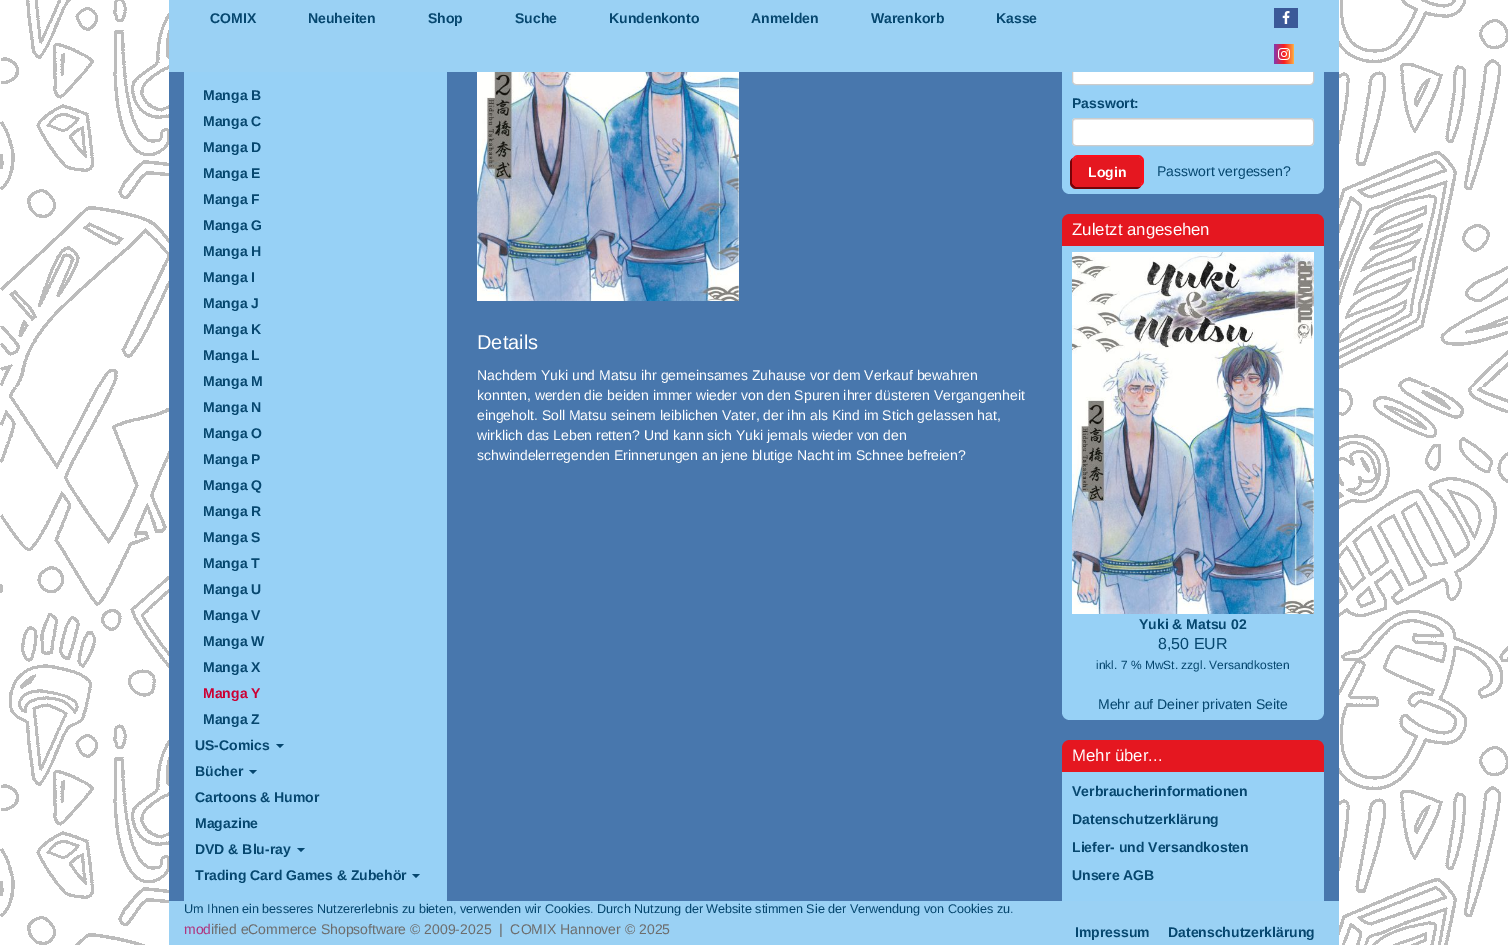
%!PS
<< /PageSize [1508 945] >> setpagedevice
/rgb { 3 { 255 div 3 1 roll } repeat setrgbcolor } def
/font { [ exch dup neg 0 0 3 -1 roll 0 0 ] selectfont } def
/roundrect { 5 dict begin { /r /h /w /y /x } { exch def } forall
  x r add y moveto x w add y 2 copy h add r arct x w add y h add x 1 index r arct
  x y h add x y r arct x y 2 copy exch w add exch r arct closepath end } def
/picture { 5 dict begin { /h /w /y /x /name } { exch def } forall
  gsave x y translate w h scale
  w h 8 [w 0 0 h 0 0] name (r) file false 3 colorimage grestore end } def
0 945 translate 1 -1 scale
4 setmiterlimit
255 255 255 rgb
0 0 1508 945 rectfill
(img/1.rgb) 0 0 1508 945 picture
72 119 173 rgb
169 72 1170 829 rectfill
151 209 246 rgb
1062 26 moveto 1324 26 lineto 1324 186 lineto 1324 190.5 1320.5 194 1316 194 curveto 1070 194 lineto 1065.5 194 1062 190.5 1062 186 curveto closepath fill
255 255 255 rgb
1072.5 57.5 241 27 3.5 roundrect gsave fill grestore
204 204 204 rgb
stroke
154 209 244 rgb
169 0 1170 72 rectfill
59 89 152 rgb
1274 8 24 20 rectfill
(img/2.rgb) 1282 11 8 13 picture
gsave 1274 44 moveto 1294 44 lineto 1294 64 lineto 1274 64 lineto closepath clip newpath
<< /ShadingType 2 /ColorSpace /DeviceRGB /Coords [1274 54 1294 54] /Extend [true true] /Function << /FunctionType 3 /Domain [0 1] /Functions [<< /FunctionType 2 /Domain [0 1] /C0 [0.518 0.224 0.694] /C1 [0.98 0.114 0.122] /N 1 >> << /FunctionType 2 /Domain [0 1] /C0 [0.98 0.114 0.122] /C1 [0.988 0.678 0.267] /N 1 >>] /Bounds [0.5] /Encode [0 1 0 1] >> >> shfill grestore
(img/3.rgb) 1278 48 12 12 picture
151 209 246 rgb
184 72 263 829 rectfill
6 71 111 rgb
276 744 moveto 284 744 lineto 280 748 lineto closepath fill
249 770 moveto 257 770 lineto 253 774 lineto closepath fill
297 848 moveto 305 848 lineto 301 852 lineto closepath fill
412 874 moveto 420 874 lineto 416 878 lineto closepath fill
(img/4.rgb) 477 72 262 229 picture
255 255 255 rgb
1072 118 242 28 4 roundrect fill
236 236 236 rgb
1076 120 moveto 1311 120 lineto 1313 121 lineto 1313 123 lineto 1313 121 1312 119 1310 119 curveto 1076 119 lineto 1074 119 1073 121 1073 123 curveto 1073 121 1074 120 1076 120 curveto closepath fill
204 204 204 rgb
1072.5 118.5 241 27 3.5 roundrect stroke
119 2 7 rgb
1073 158 moveto 1071 159 1070 161 1070 163 curveto 1070 183 lineto 1070 186 1073 189 1076 189 curveto 1136 189 lineto 1138 189 1140 188 1141 186 curveto 1138 187 lineto 1078 187 lineto 1075 187 1072 184 1072 181 curveto 1072 161 lineto closepath fill
229 23 32 rgb
1078 157 moveto 1138 157 lineto 1140 157 1142 159 1142 161 curveto 1142 181 lineto 1142 184 1140 187 1138 187 curveto 1078 187 lineto 1075 187 1072 184 1072 181 curveto 1072 161 lineto 1072 159 1075 157 1078 157 curveto closepath fill
255 13 27 rgb
1078 155 moveto 1138 155 lineto 1141 155 1144 158 1144 161 curveto 1144 181 lineto 1144 184 1141 187 1138 187 curveto 1078 187 lineto 1075 187 1072 184 1072 181 curveto 1072 161 lineto 1072 158 1075 155 1078 155 curveto closepath 1078 157 moveto 1138 157 lineto 1140 157 1142 159 1142 161 curveto 1142 181 lineto 1142 184 1140 187 1138 187 curveto 1078 187 lineto 1075 187 1072 184 1072 181 curveto 1072 161 lineto 1072 159 1075 157 1078 157 curveto closepath eofill
229 23 32 rgb
1070 214 moveto 1316 214 lineto 1320.5 214 1324 217.5 1324 222 curveto 1324 246 lineto 1062 246 lineto 1062 222 lineto 1062 217.5 1065.5 214 1070 214 curveto closepath fill
151 209 246 rgb
1062 246 moveto 1324 246 lineto 1324 712 lineto 1324 716.5 1320.5 720 1316 720 curveto 1070 720 lineto 1065.5 720 1062 716.5 1062 712 curveto closepath fill
(img/5.rgb) 1072 252 242 362 picture
229 23 32 rgb
1070 740 moveto 1316 740 lineto 1320.5 740 1324 743.5 1324 748 curveto 1324 772 lineto 1062 772 lineto 1062 748 lineto 1062 743.5 1065.5 740 1070 740 curveto closepath fill
151 209 246 rgb
1062 772 262 129 rectfill
154 209 244 rgb
169 901 1170 44 rectfill
/LiberationSans-Bold 14 font
6 71 111 rgb
[
  [(COMIX) 210 23]
  [(Neuheiten) 308 23]
  [(Shop) 428 23]
  [(Suche) 515 23]
  [(Kundenkonto) 609 23]
  [(Anmelden) 751 23]
  [(Warenkorb) 871 23]
  [(Kasse) 996 23]
  [(Manga B) 203 100]
  [(Manga C) 203 126]
  [(Manga D) 203 152]
  [(Manga E) 203 178]
  [(Manga F) 203 204]
  [(Manga G) 203 230]
  [(Manga H) 203 256]
  [(Manga I) 203 282]
  [(Manga J) 203 308]
  [(Manga K) 203 334]
  [(Manga L) 203 360]
  [(Manga M) 203 386]
  [(Manga N) 203 412]
  [(Manga O) 203 438]
  [(Manga P) 203 464]
  [(Manga Q) 203 490]
  [(Manga R) 203 516]
  [(Manga S) 203 542]
  [(Manga T) 203 568]
  [(Manga U) 203 594]
  [(Manga V) 203 620]
  [(Manga W) 203 646]
  [(Manga X) 203 672]
] { aload pop moveto show } forall
204 0 51 rgb
203 698 moveto (Manga Y) show
6 71 111 rgb
[
  [(Manga Z) 203 724]
  [(US-Comics) 195 750]
  [(Bücher) 195 776]
  [(Cartoons & Humor) 195 802]
  [(Magazine) 195 828]
  [(DVD & Blu-ray) 195 854]
  [(Trading Card Games & Zubehör) 195 880]
] { aload pop moveto show } forall
/LiberationSans-Regular 20 font
255 255 255 rgb
477 349 moveto (Details) show
/LiberationSans-Regular 14 font
[
  [(Nachdem Yuki und Matsu ihr gemeinsames Zuhause vor dem Verkauf bewahren) 477 380]
  [(konnten, werden die beiden immer wieder von den Spuren ihrer düsteren Vergangenheit) 477 400]
  [(eingeholt. Soll Matsu seinem leiblichen Vater, der ihn als Kind im Stich gelassen hat,) 477 420]
  [(wirklich das Leben retten? Und kann sich Yuki jemals wieder von den) 477 440]
  [(schwindelerregenden Erinnerungen an jene blutige Nacht im Schnee befreien?) 477 460]
] { aload pop moveto show } forall
/LiberationSans-Bold 14 font
6 71 111 rgb
1072 108 moveto (Passwort:) show
255 255 255 rgb
1088 177 moveto (Login) show
/LiberationSans-Regular 14 font
6 71 111 rgb
1157 176 moveto (Passwort vergessen?) show
/LiberationSans-Regular 16.75 font
255 255 255 rgb
1072 235 moveto (Zuletzt angesehen) show
/LiberationSans-Bold 14 font
6 71 111 rgb
1139 629 moveto (Yuki & Matsu 02) show
/LiberationSans-Regular 16 font
1158 649 moveto (8,50 EUR) show
/LiberationSans-Regular 12 font
1096 669 moveto (inkl. 7 % MwSt. zzgl. Versandkosten) show
/LiberationSans-Regular 14 font
1098 709 moveto (Mehr auf Deiner privaten Seite) show
/LiberationSans-Regular 16.75 font
255 255 255 rgb
1072 761 moveto (Mehr über...) show
/LiberationSans-Bold 14 font
6 71 111 rgb
[
  [(Verbraucherinformationen) 1072 796]
  [(Datenschutzerklärung) 1072 824]
  [(Liefer- und Versandkosten) 1072 852]
  [(Unsere AGB) 1072 880]
] { aload pop moveto show } forall
/LiberationSans-Regular 12.6 font
184 913 moveto (Um Ihnen ein besseres Nutzererlebnis zu bieten, verwenden wir Cookies. Durch Nutzung der Website stimmen Sie der Verwendung von Cookies zu.) show
/LiberationSans-Regular 14 font
176 52 126 rgb
184 934 moveto (mod) show
109 109 109 rgb
211 934 moveto (ified eCommerce Shopsoftware © 2009-2025  |  COMIX Hannover © 2025) show
/LiberationSans-Bold 14 font
6 71 111 rgb
1075 937 moveto (Impressum) show
1168 937 moveto (Datenschutzerklärung) show
showpage
